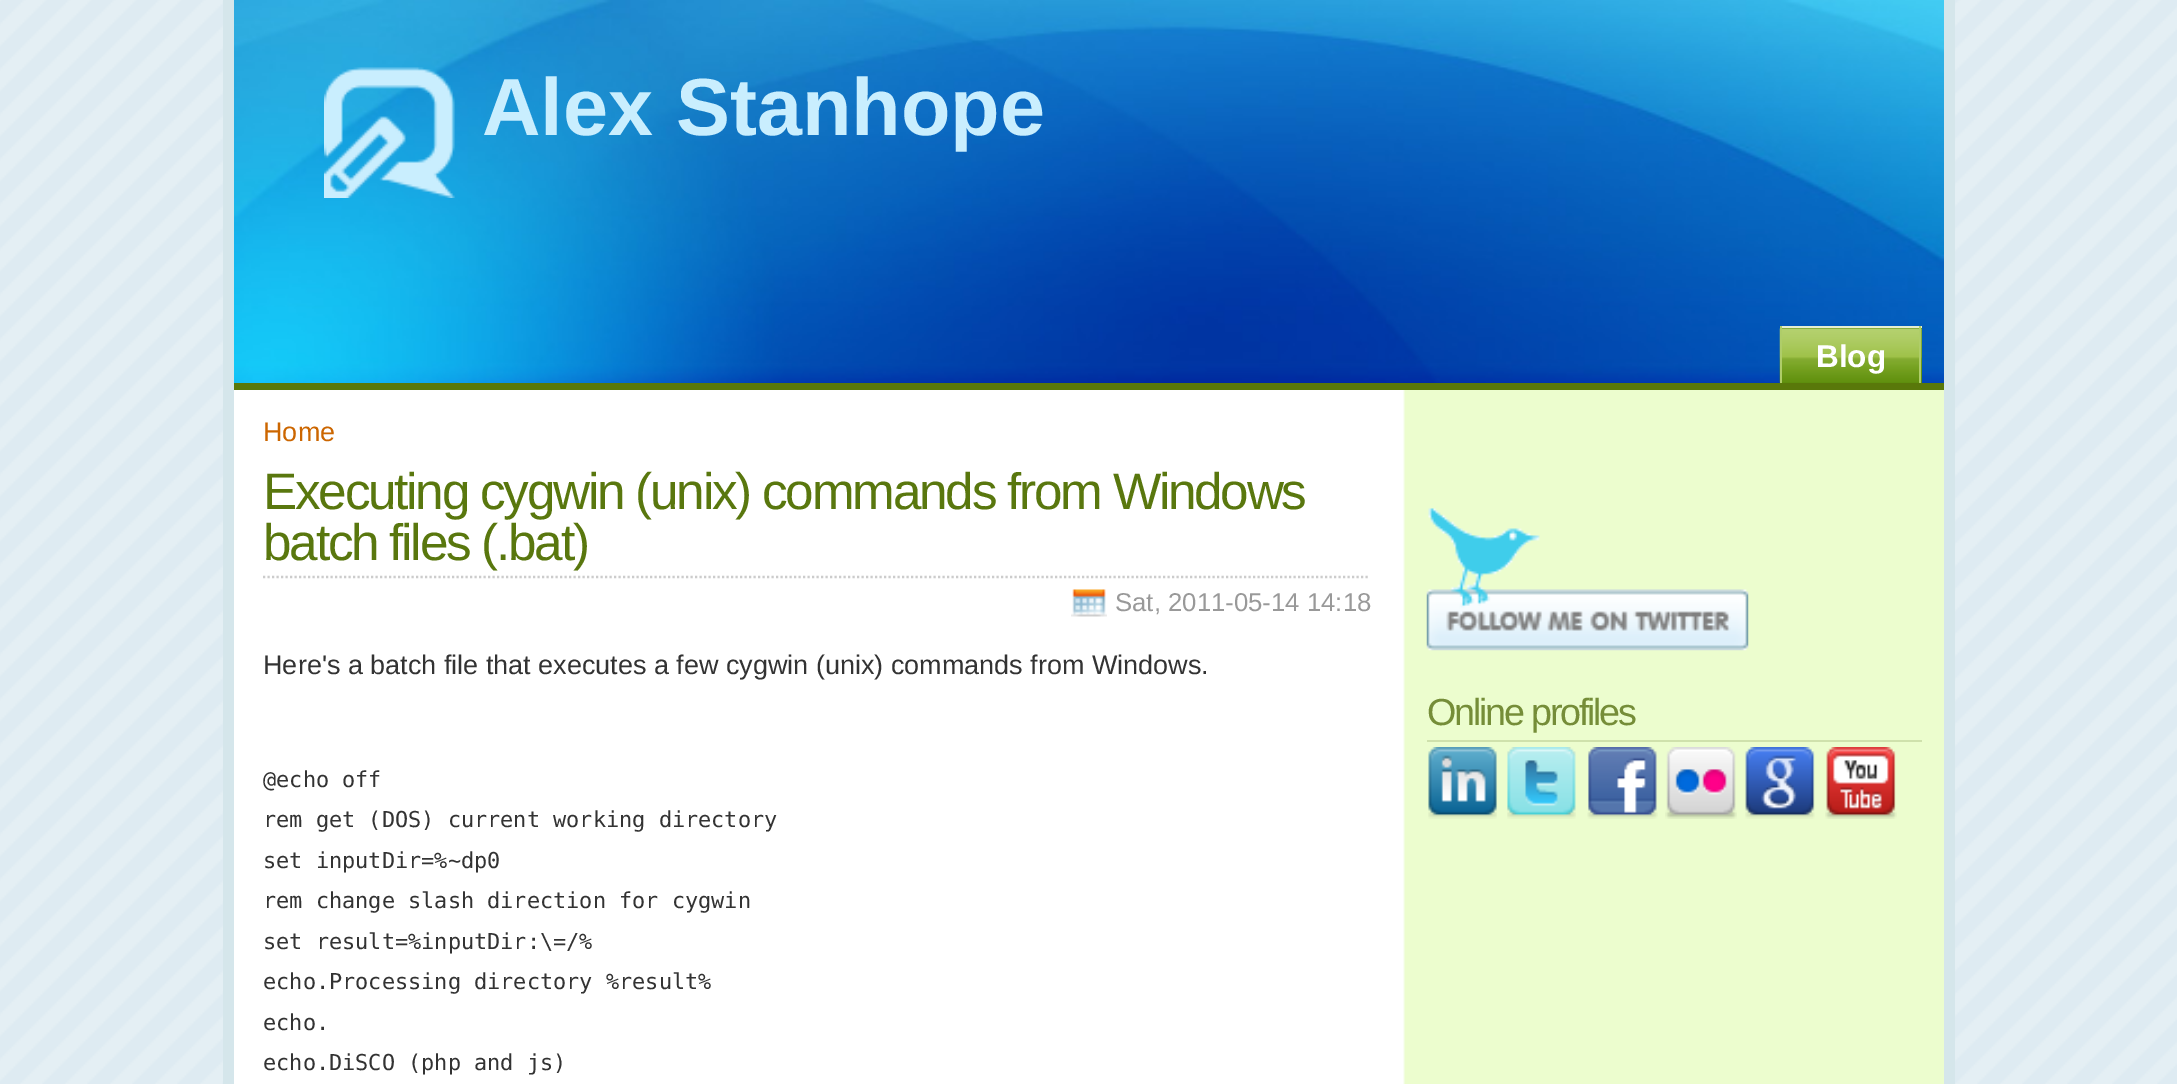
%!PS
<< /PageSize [2177 1084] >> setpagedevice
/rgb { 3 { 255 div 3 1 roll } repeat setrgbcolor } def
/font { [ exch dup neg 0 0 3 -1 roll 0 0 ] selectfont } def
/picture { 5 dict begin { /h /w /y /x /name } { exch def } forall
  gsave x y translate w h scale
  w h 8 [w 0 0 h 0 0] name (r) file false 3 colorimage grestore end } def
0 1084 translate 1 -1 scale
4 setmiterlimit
255 255 255 rgb
0 0 2177 1084 rectfill
(img/1.rgb) 0 0 2177 1084 picture
234 390 1169 694 rectfill
(img/2.rgb) 1403 390 541 694 picture
213 230 235 rgb
1944 0 11 1084 rectfill
223 0 11 1084 rectfill
(img/3.rgb) 234 0 1710 383 picture
89 120 10 rgb
234 383 1710 7 rectfill
(img/4.rgb) 324 67 131 131 picture
92 141 12 rgb
1782 328 140 55 rectfill
(img/5.rgb) 1779 328 143 55 picture
[
  [1780 326 142 2 230 238 208]
  [1919 326 2 57 175 205 105]
  [1780 326 2 57 175 205 105]
] { aload pop rgb rectfill } forall
204 204 204 rgb
2.2 setlinewidth
[2.25 2.25] 0 setdash
263 577 moveto 1370 577 lineto stroke
(img/6.rgb) 1071 589 36 28 picture
(img/7.rgb) 1426 508 323 143 picture
207 225 172 rgb
1427 740 495 2 rectfill
(img/8.rgb) 1428 747 69 72 picture
(img/9.rgb) 1507 747 69 72 picture
(img/10.rgb) 1587 747 71 72 picture
(img/11.rgb) 1665 747 72 72 picture
(img/12.rgb) 1745 747 70 72 picture
(img/13.rgb) 1825 747 72 72 picture
/LiberationSans-Bold 81 font
201 238 254 rgb
482 135 moveto (Alex Stanhope) show
/LiberationSans-Bold 31.5 font
255 255 255 rgb
1816 367 moveto (Blog) show
/LiberationSans-Regular 27 font
204 102 0 rgb
263 441 moveto (Home) show
/LiberationSans-Regular 51.3 font
89 119 14 rgb
263 509 moveto -2.25 0 (Executing cygwin \(unix\) commands from Windows) ashow
263 560 moveto -2.25 0 (batch files \(.bat\)) ashow
/LiberationSans-Regular 25.75 font
153 153 153 rgb
1115 611 moveto (Sat, 2011-05-14 14:18) show
/LiberationSans-Regular 27 font
51 51 51 rgb
263 674 moveto (Here's a batch file that executes a few cygwin \(unix\) commands from Windows.) show
/DejaVuSansMono-Regular 21.9 font
[
  [(@echo off) 263 787]
  [(rem get \(DOS\) current working directory) 263 827]
  [(set inputDir=%~dp0) 263 868]
  [(rem change slash direction for cygwin) 263 908]
  [(set result=%inputDir:\\=/%) 263 949]
  [(echo.Processing directory %result%) 263 989]
  [(echo.) 263 1030]
  [(echo.DiSCO \(php and js\)) 263 1070]
] { aload pop moveto show } forall
/LiberationSans-Regular 37.75 font
117 141 56 rgb
1427 725 moveto -2.25 0 (Online profiles) ashow
showpage
